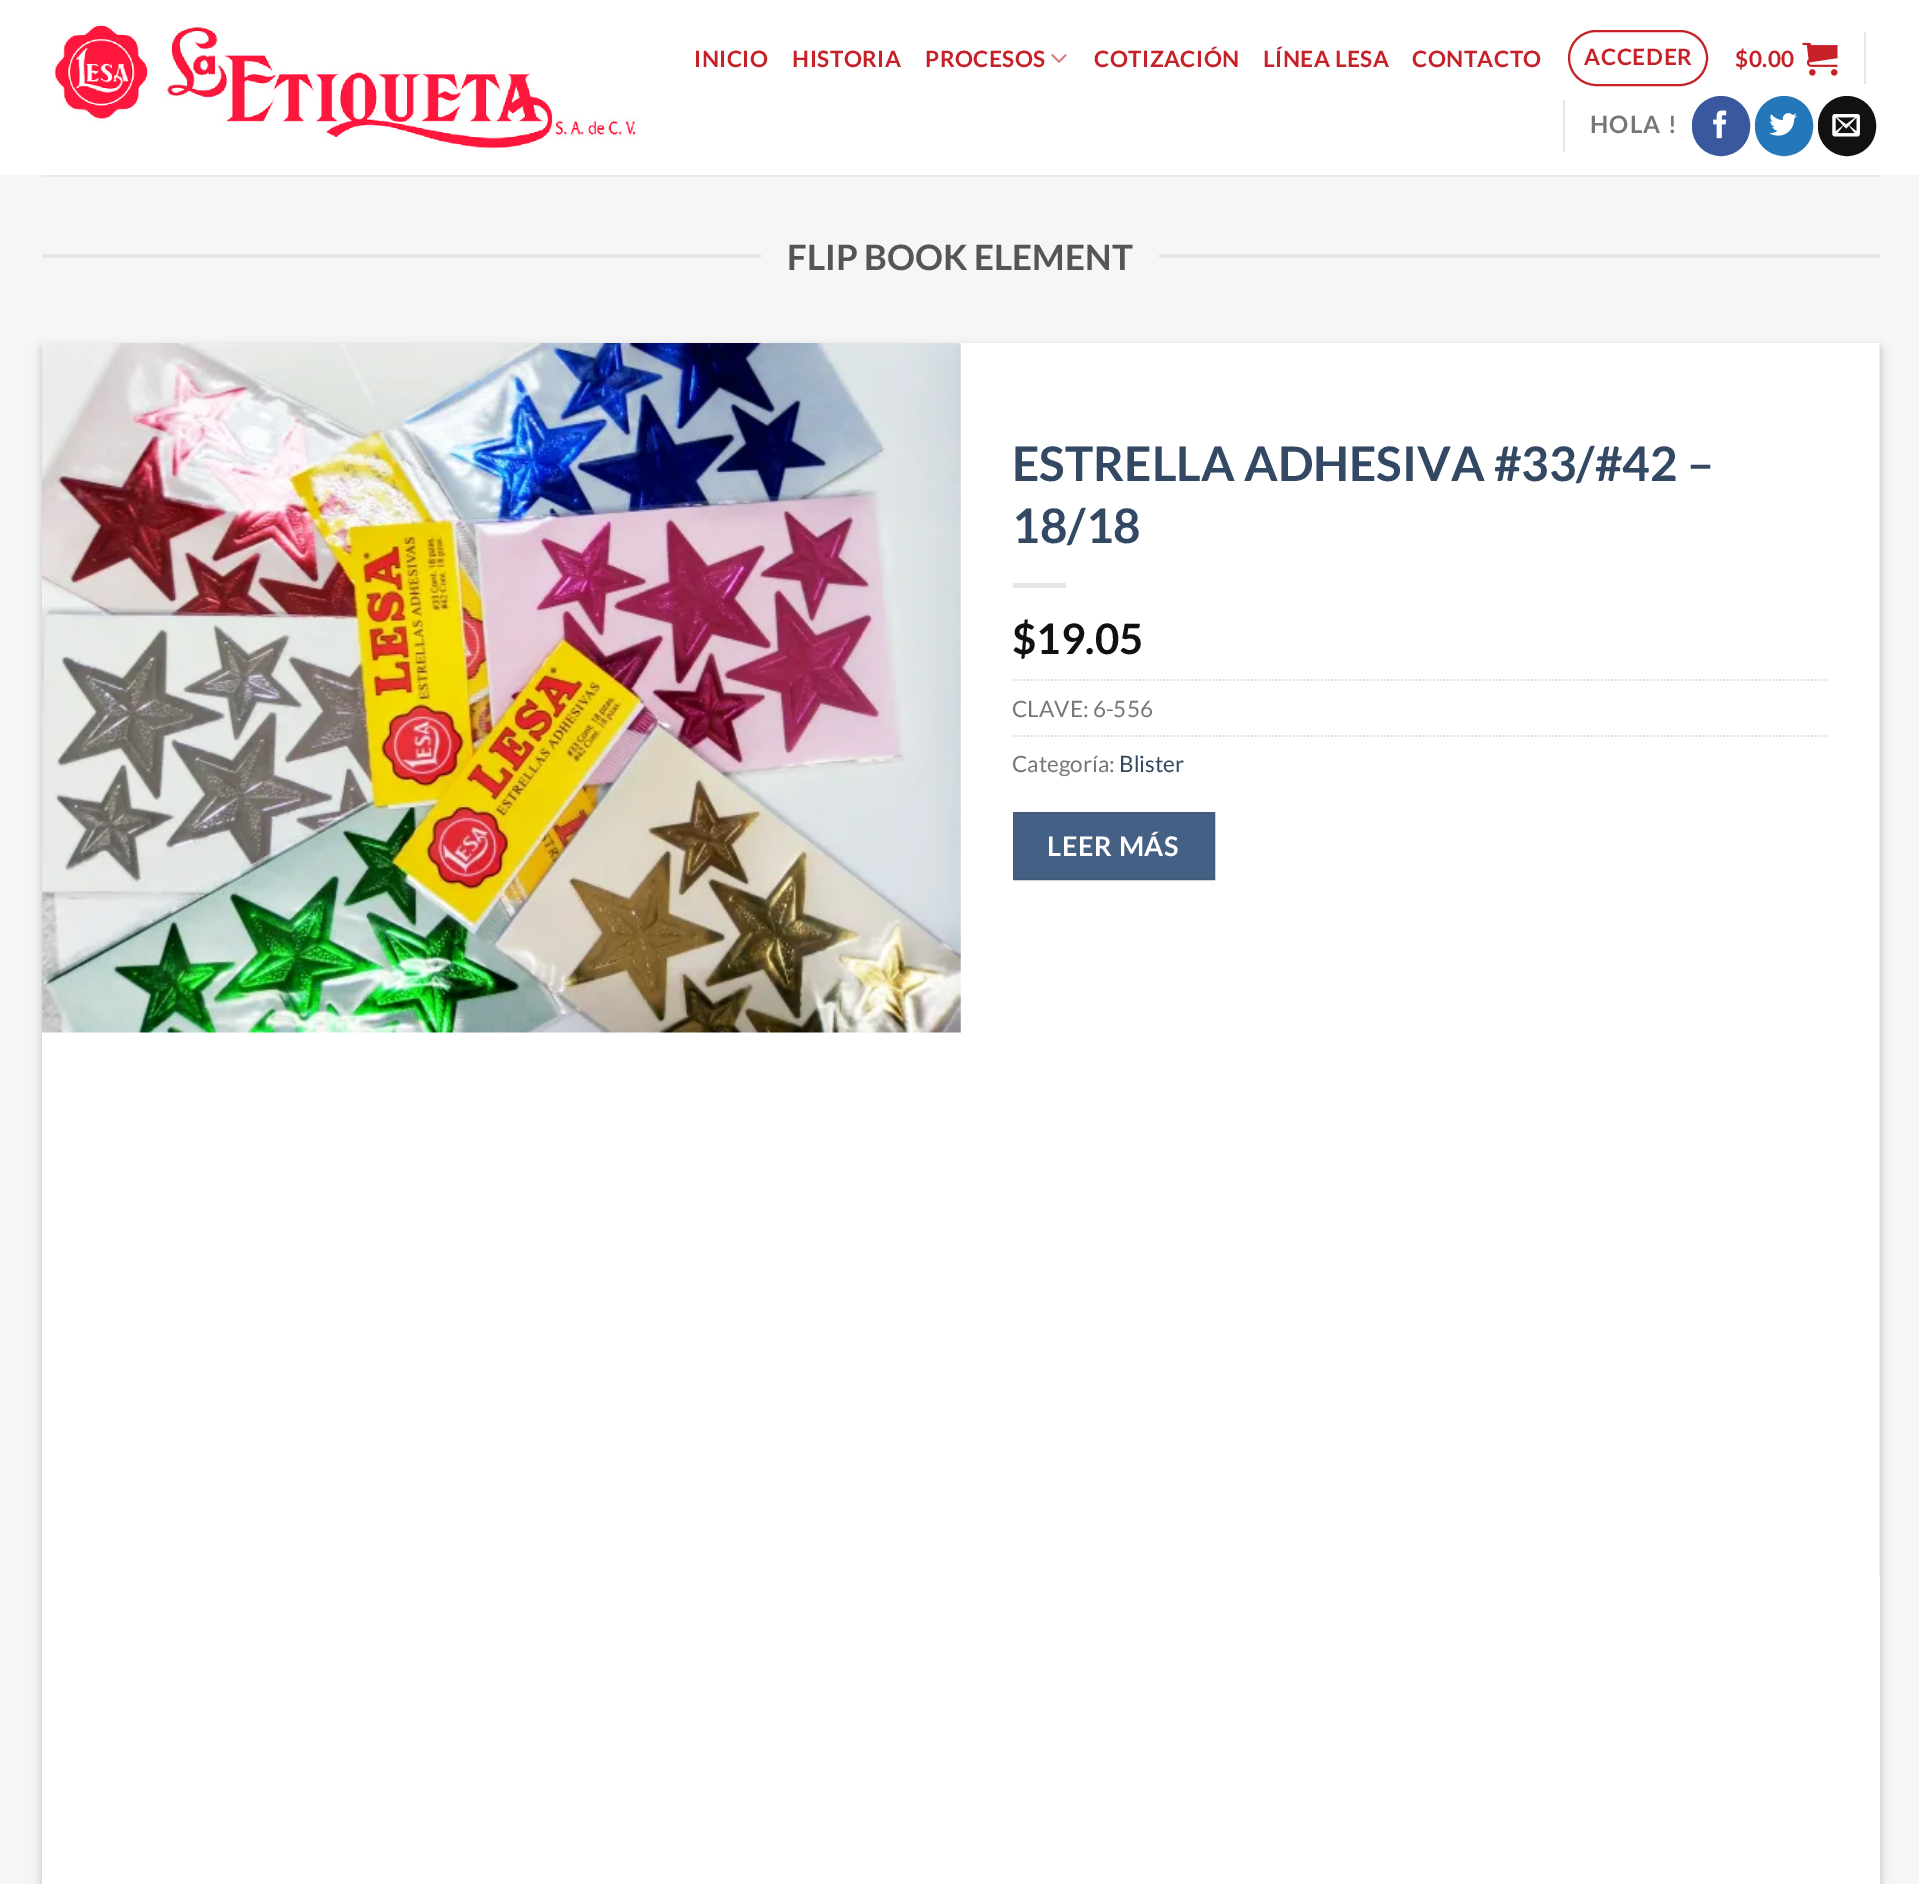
%!PS
<< /PageSize [1919 1884] /PageUsesTransparency true >> setpagedevice
/rgb { 3 { 255 div 3 1 roll } repeat setrgbcolor } def
/font { [ exch dup neg 0 0 3 -1 roll 0 0 ] selectfont } def
/alpha { dup .setfillconstantalpha .setstrokeconstantalpha } def
/roundrect { 5 dict begin { /r /h /w /y /x } { exch def } forall
  x r add y moveto x w add y 2 copy h add r arct x w add y h add x 1 index r arct
  x y h add x y r arct x y 2 copy exch w add exch r arct closepath end } def
/shadow { 12 dict begin { /a /b /q /h /w /y /x } { exch def } forall gsave /was 0 def
  9 -2 -9 { dup b mul 4 div /e exch def 1 sub .425 mul 2.718 exch exp 1 add a .99 .min exch div /now exch def
    1 1 now sub 1 was sub div sub alpha /was now def
    w h .min e 2 mul add 0 gt { x e sub y e sub w e 2 mul add h e 2 mul add
      q e add b .6 mul add w h .min 2 div e add .min 0 .max roundrect fill } if } for grestore end } def
/picture { 5 dict begin { /h /w /y /x /name } { exch def } forall
  gsave x y translate w h scale
  w h 8 [w 0 0 h 0 0] name (r) file false 3 colorimage grestore end } def
0 .pushpdf14devicefilter
0 1884 translate 1 -1 scale
4 setmiterlimit
255 255 255 rgb
0 0 1919 1884 rectfill
(img/1.rgb) 53 25 586 124 picture
(img/2.rgb) 1051 54 16 9 picture
198 33 40 rgb
2 setlinewidth
1569 31 138 54 27 roundrect stroke
(img/3.rgb) 1802 42 36 34 picture
230 230 230 rgb
1864 32 2 52 rectfill
1563 100 2 52 rectfill
58 88 157 rgb
1693 97 56 58 28 roundrect gsave fill grestore
stroke
(img/4.rgb) 1713 110 14 29 picture
36 120 186 rgb
1756 97 56 58 28 roundrect gsave fill grestore
stroke
(img/5.rgb) 1769 113 28 23 picture
17 17 17 rgb
1819 97 56 58 28 roundrect gsave fill grestore
stroke
(img/6.rgb) 1832 114 28 23 picture
[
  [0 175 1919 1709 246 246 246]
  [42 175 1838 2 233 233 233]
  [42 254 719 4 230 230 230]
  [1159 254 721 4 230 230 230]
] { aload pop rgb rectfill } forall
0 0 0 rgb
42 348 1838 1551 0 5 0.23 shadow
255 255 255 rgb
42 343 1838 1541 rectfill
(img/7.rgb) 42 343 919 690 picture
230 230 230 rgb
1013 583 53 5 rectfill
221 221 221 rgb
1.8 setlinewidth
[1.75 1.75] 0 setdash
1013 680 moveto 1827 680 lineto stroke
1013 736 moveto 1827 736 lineto stroke
68 96 132 rgb
1014 813 moveto 1214 813 lineto 1214 879 lineto 1014 879 lineto closepath gsave fill grestore
65 91 125 rgb
2 setlinewidth
[] 0 setdash
stroke
(img/8.rgb) 1879 343 1 1232 picture
/Lato-Bold 22.5 font
198 33 40 rgb
694 67 moveto 0.5 0 (INICIO) ashow
792 67 moveto 0.5 0 (HISTORIA) ashow
925 67 moveto 0.5 0 (PROCESOS) ashow
1094 67 moveto 0.5 0 (COTIZACIÓN) ashow
1263 67 moveto 0.5 0 (LÍNEA LESA) ashow
1412 67 moveto 0.5 0 (CONTACTO) ashow
1584 65 moveto 0.75 0 (ACCEDER) ashow
1735 67 moveto 0.5 0 ($0.00) ashow
/Lato-Bold 24 font
119 119 119 rgb
1590 133 moveto 1.25 0 (HOLA !) ashow
/Lato-Bold 35 font
85 85 85 rgb
787 270 moveto (FLIP BOOK ELEMENT) show
/Lato-Bold 47.6 font
51 72 98 rgb
1012 481 moveto (ESTRELLA ADHESIVA #33/#42 –) show
1012 543 moveto (18/18) show
/Lato-Bold 42 font
17 17 17 rgb
1012 654 moveto ($19.05) show
/Lato-Regular 22.5 font
119 119 119 rgb
1012 717 moveto (CLAVE: 6-556) show
1012 772 moveto (Categoría:) show
51 72 98 rgb
1119 772 moveto (Blister) show
/Lato-Bold 27 font
255 255 255 rgb
1047 856 moveto 0.75 0 (LEER MÁS) ashow
.poppdf14devicefilter showpage
